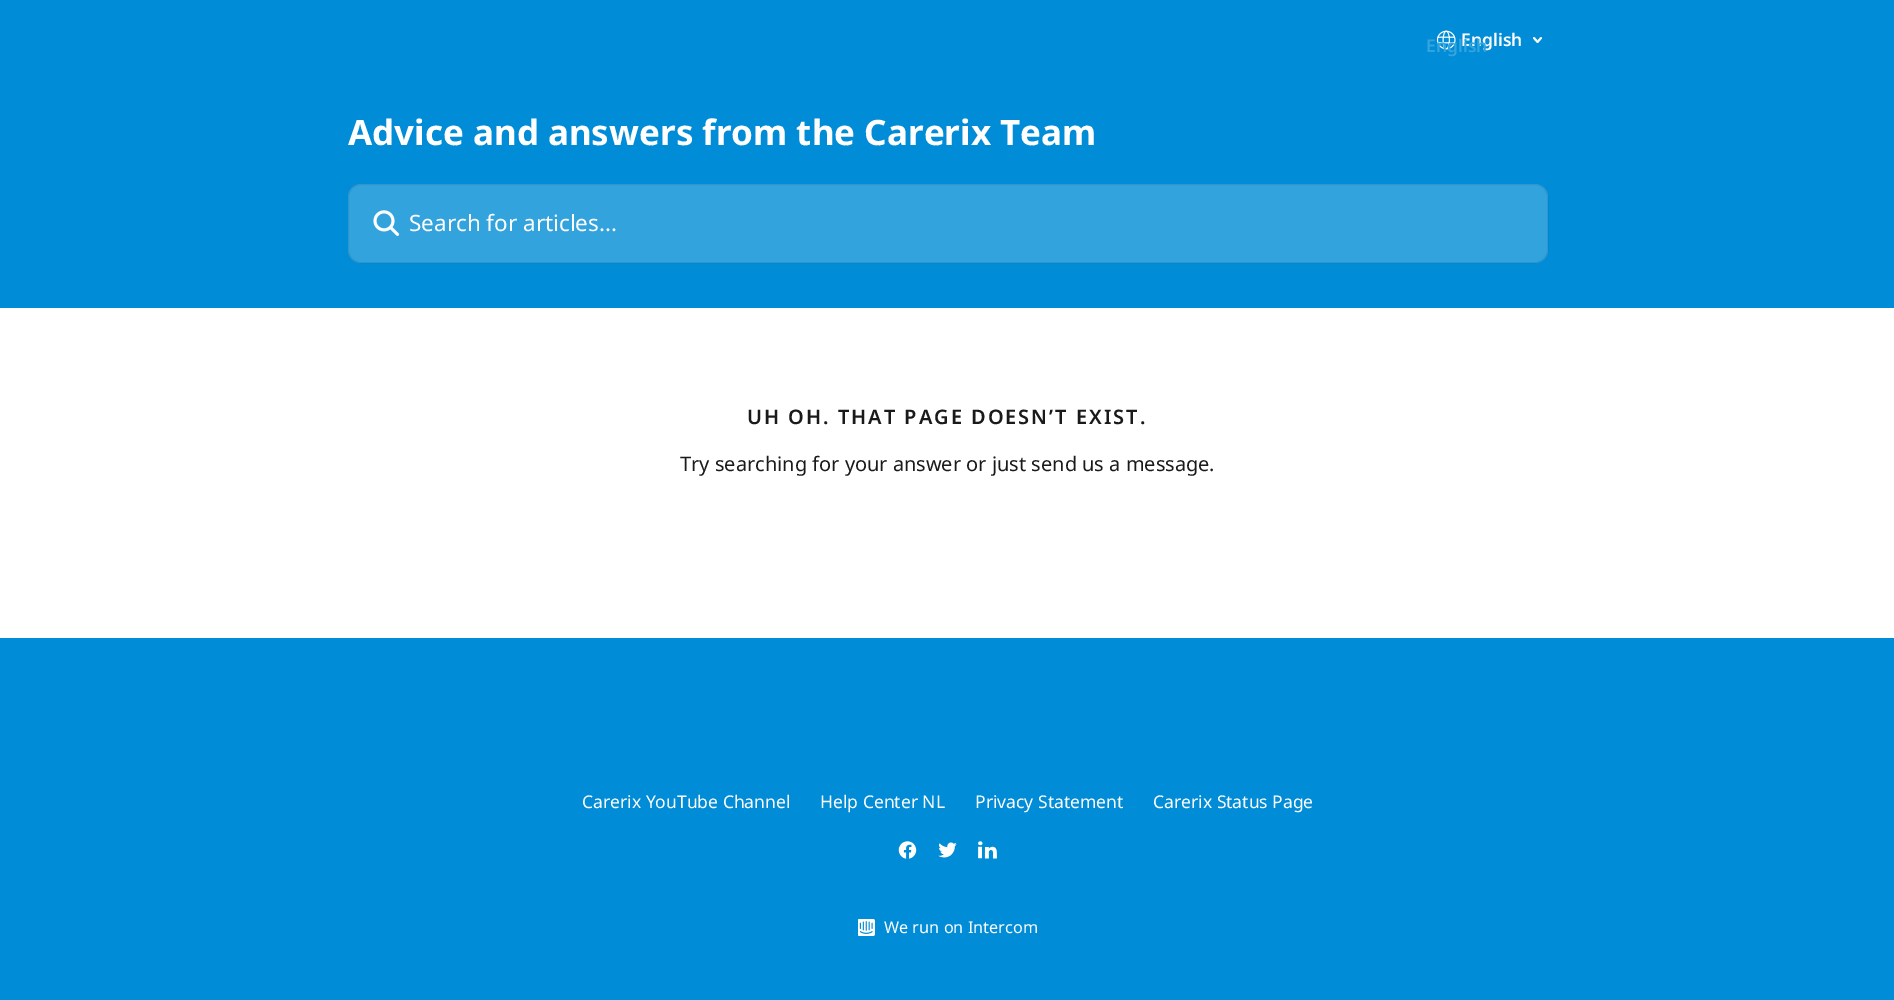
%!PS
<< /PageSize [1894 1000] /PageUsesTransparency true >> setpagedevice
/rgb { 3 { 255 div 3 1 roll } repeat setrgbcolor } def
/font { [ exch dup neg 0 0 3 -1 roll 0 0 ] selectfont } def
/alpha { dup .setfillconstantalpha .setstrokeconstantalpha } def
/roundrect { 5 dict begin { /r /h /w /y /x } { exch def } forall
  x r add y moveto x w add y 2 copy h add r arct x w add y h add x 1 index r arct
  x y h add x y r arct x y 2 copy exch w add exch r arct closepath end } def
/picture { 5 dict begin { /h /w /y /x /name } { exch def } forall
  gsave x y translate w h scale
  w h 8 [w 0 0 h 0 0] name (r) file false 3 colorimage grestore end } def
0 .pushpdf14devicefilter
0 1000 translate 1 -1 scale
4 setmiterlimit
255 255 255 rgb
0 0 1894 1000 rectfill
0 140 214 rgb
0 0 1894 308 rectfill
(img/1.rgb) 1436 30 20 20 picture
255 255 255 rgb
1.9 setlinewidth
1 setlinecap
1 setlinejoin
1534 38 moveto 1537.5 42 lineto 1541 38 lineto stroke
0.2 alpha
348 184 1200 79 13 roundrect fill
0.08 alpha
0 0 0 rgb
1 setlinewidth
0 setlinecap
0 setlinejoin
348.5 184.5 1199 78 12.5 roundrect stroke
1 alpha
(img/2.rgb) 373 210 27 26 picture
0 140 214 rgb
0 638 1894 362 rectfill
(img/3.rgb) 898 841 19 18 picture
(img/4.rgb) 938 842 19 16 picture
(img/5.rgb) 978 841 19 18 picture
(img/6.rgb) 858 919 17 17 picture
/NotoSans-SemiBold 17.5 font
255 255 255 rgb
1461 46 moveto (English) show
52 164 222 rgb
1426 52 moveto (English) show
/NotoSans-Bold 35 font
255 255 255 rgb
348 145 moveto (Advice and answers from the Carerix Team) show
/NotoSans-Regular 22.5 font
409 231 moveto (Search for articles...) show
/NotoSans-SemiBold 20 font
26 26 26 rgb
747 424 moveto 2 0 (UH OH. THAT PAGE DOESN’T EXIST.) ashow
/NotoSans-Regular 20 font
680 471 moveto (Try searching for your answer or just send us a message.) show
/NotoSans-Regular 17.5 font
255 255 255 rgb
[
  [(Carerix YouTube Channel) 582 808]
  [(Help Center NL) 820 808]
  [(Privacy Statement) 975 808]
  [(Carerix Status Page) 1153 808]
] { aload pop moveto show } forall
/NotoSans-Regular 16.25 font
884 933 moveto (We run on Intercom) show
.poppdf14devicefilter showpage
